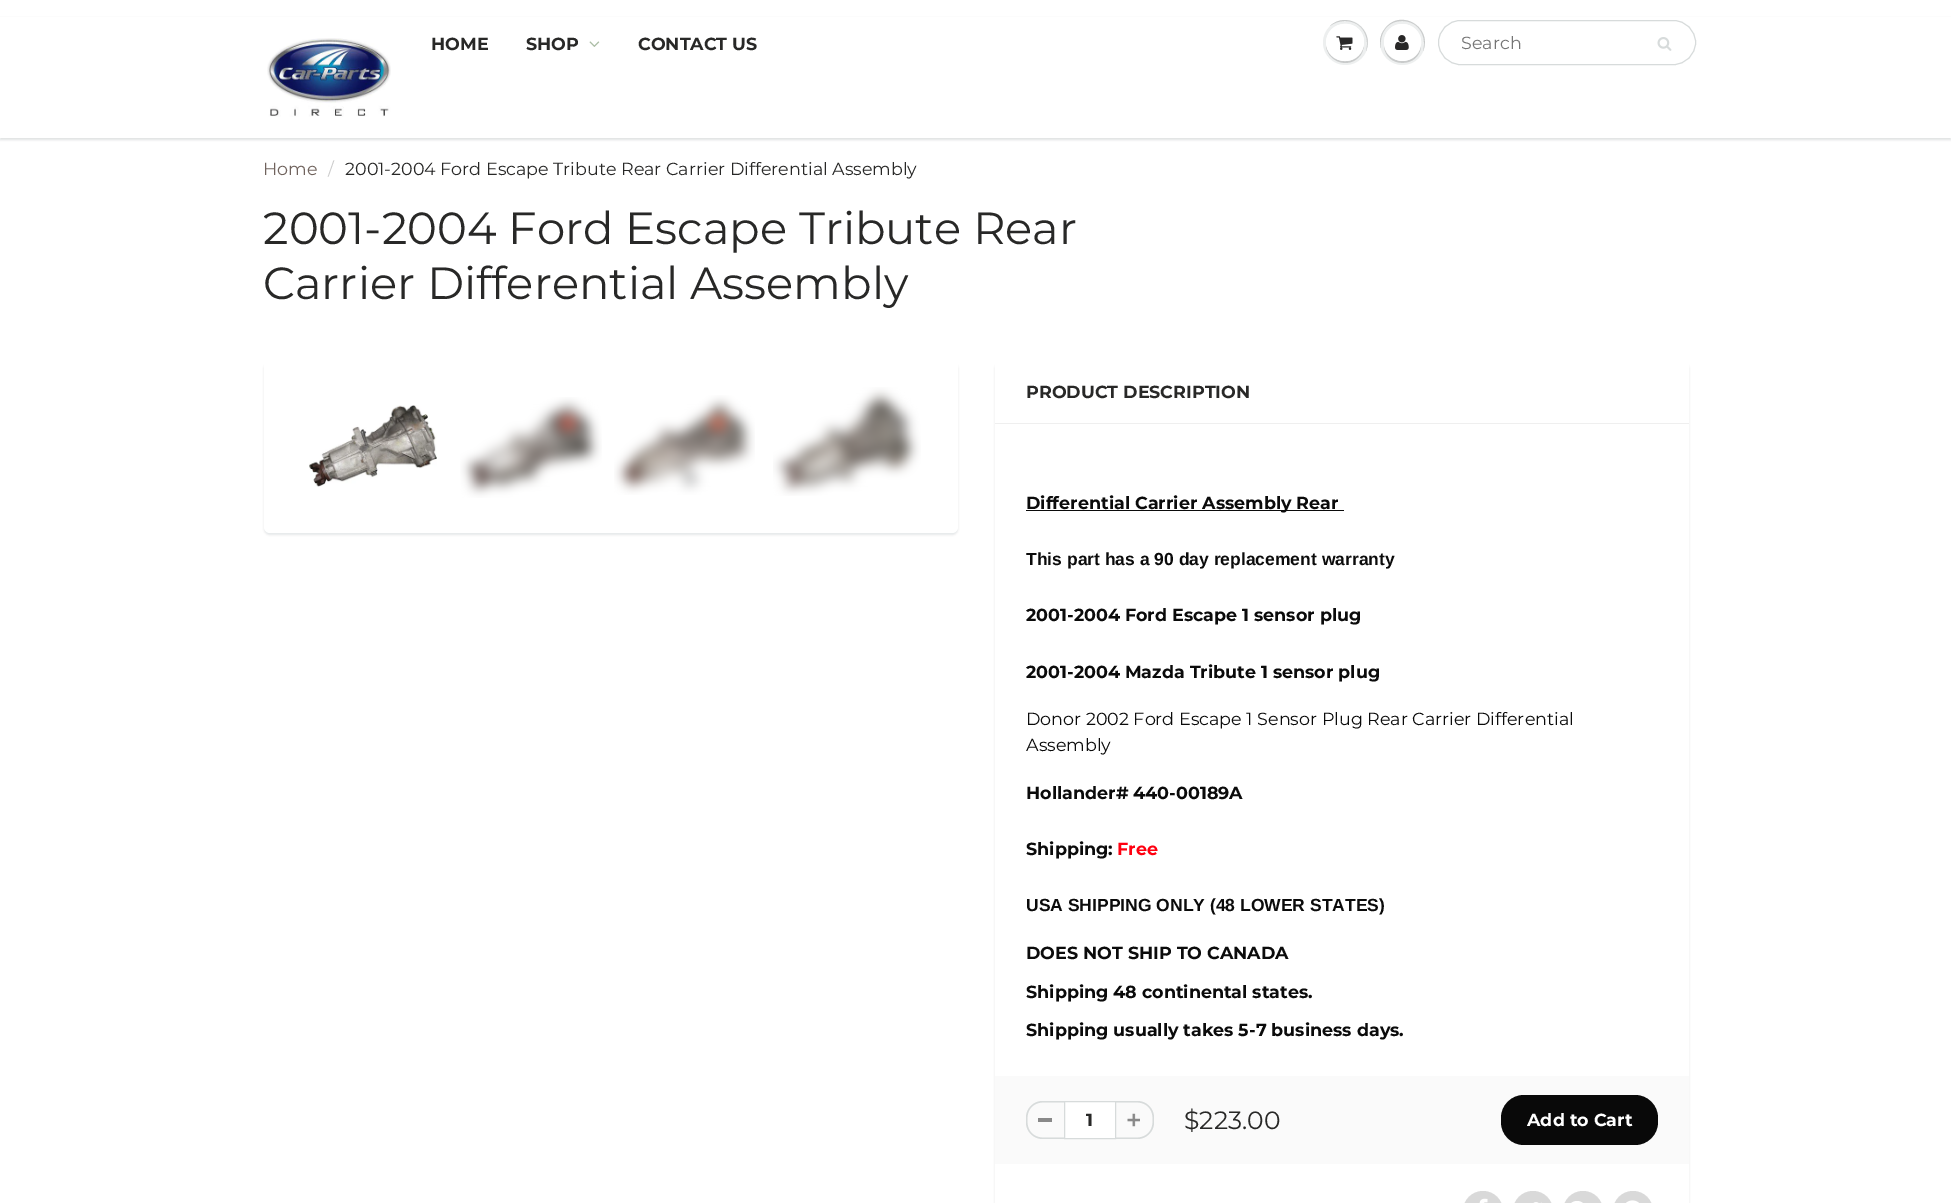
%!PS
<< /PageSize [1951 1203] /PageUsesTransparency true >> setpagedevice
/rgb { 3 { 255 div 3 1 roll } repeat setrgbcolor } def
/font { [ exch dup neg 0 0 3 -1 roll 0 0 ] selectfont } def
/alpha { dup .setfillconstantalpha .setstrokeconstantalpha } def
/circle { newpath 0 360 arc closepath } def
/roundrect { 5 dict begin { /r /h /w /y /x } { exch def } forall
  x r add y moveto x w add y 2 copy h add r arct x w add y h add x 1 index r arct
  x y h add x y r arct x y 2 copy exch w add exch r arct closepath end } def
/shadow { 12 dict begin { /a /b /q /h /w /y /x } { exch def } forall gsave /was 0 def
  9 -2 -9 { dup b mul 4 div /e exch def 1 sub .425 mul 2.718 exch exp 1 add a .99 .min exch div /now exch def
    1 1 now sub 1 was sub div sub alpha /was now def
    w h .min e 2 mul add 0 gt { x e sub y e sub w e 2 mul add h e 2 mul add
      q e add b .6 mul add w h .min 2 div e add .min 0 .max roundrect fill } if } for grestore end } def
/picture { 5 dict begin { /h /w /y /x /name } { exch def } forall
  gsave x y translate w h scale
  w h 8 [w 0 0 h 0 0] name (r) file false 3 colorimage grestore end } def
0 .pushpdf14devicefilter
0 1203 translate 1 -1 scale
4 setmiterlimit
255 255 255 rgb
0 0 1951 1203 rectfill
11 25 28 rgb
0 18 1951 122 0 1 0.12 shadow
255 255 255 rgb
0 17 1951 121 rectfill
(img/1.rgb) 267 38 124 79 picture
(img/2.rgb) 589 41 11 6 picture
237 239 239 rgb
1345.5 42.5 22.5 circle fill
201 203 203 rgb
1345 21 moveto 1363 21 1370 38 1366 51 curveto 1375 29 1347 10 1330 26 curveto 1334 23 1339 21 1345 21 curveto closepath fill
1326.5 40 moveto 1322 60 1349 72 1361 54.5 curveto 1363.5 50.5 1364.5 45 1363.5 40 curveto 1364 44.5 1363 49 1360.5 53 curveto 1349.5 69.5 1324 59.5 1326.5 40 curveto closepath fill
255 255 255 rgb
1326 24 38 37 18.5 roundrect fill
1345 25 moveto 1359 25 1365 37 1363 47 curveto 1365 42 1364 36 1361 32 curveto 1349 15 1322 27 1327 47 curveto 1325 37 1331 25 1345 25 curveto closepath fill
(img/3.rgb) 1336 36 17 14 picture
237 239 239 rgb
1402.5 42.5 22.5 circle fill
201 203 203 rgb
1402 21 moveto 1420 21 1427 38 1423 51 curveto 1433 27 1399 7 1384 30 curveto 1380 35 1379 42 1381 48 curveto 1379 35 1386 21 1402 21 curveto closepath fill
1421 46 moveto 1417.5 66 1387.5 66 1384 46 curveto 1385.5 68.5 1419.5 68.5 1421 46 curveto closepath fill
255 255 255 rgb
1402.5 42.5 18.5 circle fill
1402 25 moveto 1416 25 1422 36.5 1420.5 47 curveto 1425.5 27.5 1399 15 1387 32 curveto 1385 35.5 1384 39 1384 43 curveto 1384 34 1390 25 1402 25 curveto closepath fill
(img/4.rgb) 1395 35 14 15 picture
215 219 219 rgb
1438.5 20.5 257 44 22 roundrect stroke
(img/5.rgb) 1657 37 15 14 picture
11 25 28 rgb
264 363 694 172 6 1 0.1 shadow
255 255 255 rgb
264 360 694 173 6 roundrect fill
(img/6.rgb) 309 405 128 82 picture
(img/7.rgb) 460 397 142 101 picture
(img/8.rgb) 614 395 141 100 picture
(img/9.rgb) 773 387 148 109 picture
11 25 28 rgb
995 363 694 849 6 1 0.1 shadow
255 255 255 rgb
995 360 694 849 6 roundrect fill
[
  [995 423 694 1 239 239 239]
  [1026 510 318 1 11 11 11]
  [995 1076 694 88 250 250 250]
  [1038 1118 14 4 137 137 137]
] { aload pop rgb rectfill } forall
215 219 219 rgb
1042.5 1101 moveto 1064 1101 lineto 1064 1139 lineto 1042.5 1139 lineto 1033.5 1139 1026 1131.5 1026 1122.5 curveto 1026 1117.5 lineto 1026 1108.5 1033.5 1101 1042.5 1101 curveto closepath 1042.5 1102.5 moveto 1064 1102.5 lineto 1064 1137.5 lineto 1042.5 1137.5 lineto 1034 1137.5 1027.5 1131 1027.5 1122.5 curveto 1027.5 1117.5 lineto 1027.5 1109 1034 1102.5 1042.5 1102.5 curveto closepath eofill
255 255 255 rgb
1064.5 1101.5 moveto 1115.5 1101.5 lineto 1115.5 1138.5 lineto 1064.5 1138.5 lineto closepath gsave fill grestore
215 219 219 rgb
stroke
(img/10.rgb) 1127 1113 13 14 picture
1116 1101 moveto 1137.5 1101 lineto 1146.5 1101 1154 1108.5 1154 1117.5 curveto 1154 1122.5 lineto 1154 1131.5 1146.5 1139 1137.5 1139 curveto 1116 1139 lineto closepath 1116 1102.5 moveto 1137.5 1102.5 lineto 1146 1102.5 1152.5 1109 1152.5 1117.5 curveto 1152.5 1122.5 lineto 1152.5 1131 1146 1137.5 1137.5 1137.5 curveto 1116 1137.5 lineto closepath eofill
9 9 9 rgb
1501 1095 157 50 23 roundrect fill
217 217 217 rgb
1463 1191 40 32 20 roundrect fill
(img/11.rgb) 1479 1198 9 5 picture
1513 1191 40 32 20 roundrect fill
(img/12.rgb) 1533 1202 9 1 picture
1563 1191 40 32 20 roundrect fill
(img/13.rgb) 1571 1201 12 2 picture
1613 1191 40 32 20 roundrect fill
(img/14.rgb) 1626 1200 13 3 picture
/Montserrat-Bold 17.5 font
40 40 39 rgb
[
  [(HOME) 431 50]
  [(SHOP) 526 50]
  [(CONTACT US) 638 50]
] { aload pop moveto show } forall
/Montserrat-Regular 17.5 font
117 117 117 rgb
1461 49 moveto (Search) show
112 99 93 rgb
263 175 moveto (Home) show
204 204 204 rgb
328 175 moveto (/) show
40 40 39 rgb
345 175 moveto (2001-2004 Ford Escape Tribute Rear Carrier Differential Assembly) show
/Montserrat-Regular 45 font
263 244 moveto (2001-2004 Ford Escape Tribute Rear) show
263 299 moveto (Carrier Differential Assembly) show
/Montserrat-Bold 17.5 font
1026 398 moveto (PRODUCT DESCRIPTION) show
11 11 11 rgb
1026 509 moveto (Differential Carrier Assembly Rear) show
/LiberationSans-Bold 17.5 font
1026 565 moveto (This part has a 90 day replacement warranty) show
/Montserrat-Bold 17.5 font
1026 621 moveto (2001-2004 Ford Escape 1 sensor plug) show
1026 678 moveto (2001-2004 Mazda Tribute 1 sensor plug) show
/Montserrat-Regular 17.5 font
1026 725 moveto (Donor 2002 Ford Escape 1 Sensor Plug Rear Carrier Differential) show
1026 751 moveto (Assembly) show
/Montserrat-Bold 17.5 font
1026 799 moveto (Hollander# 440-00189A) show
1026 855 moveto (Shipping:) show
255 0 16 rgb
1117 855 moveto (Free) show
/LiberationSans-Bold 17.5 font
11 11 11 rgb
1026 911 moveto (USA SHIPPING ONLY \(48 LOWER STATES\)) show
/Montserrat-Bold 17.5 font
[
  [(DOES NOT SHIP TO CANADA) 1026 959]
  [(Shipping 48 continental states.) 1026 998]
  [(Shipping usually takes 5-7 business days.) 1026 1036]
] { aload pop moveto show } forall
40 40 39 rgb
1086 1126 moveto (1) show
/Montserrat-Regular 25 font
1184 1129 moveto ($223.00) show
/Montserrat-Bold 17.5 font
255 255 255 rgb
1527 1126 moveto (Add to Cart) show
.poppdf14devicefilter showpage
